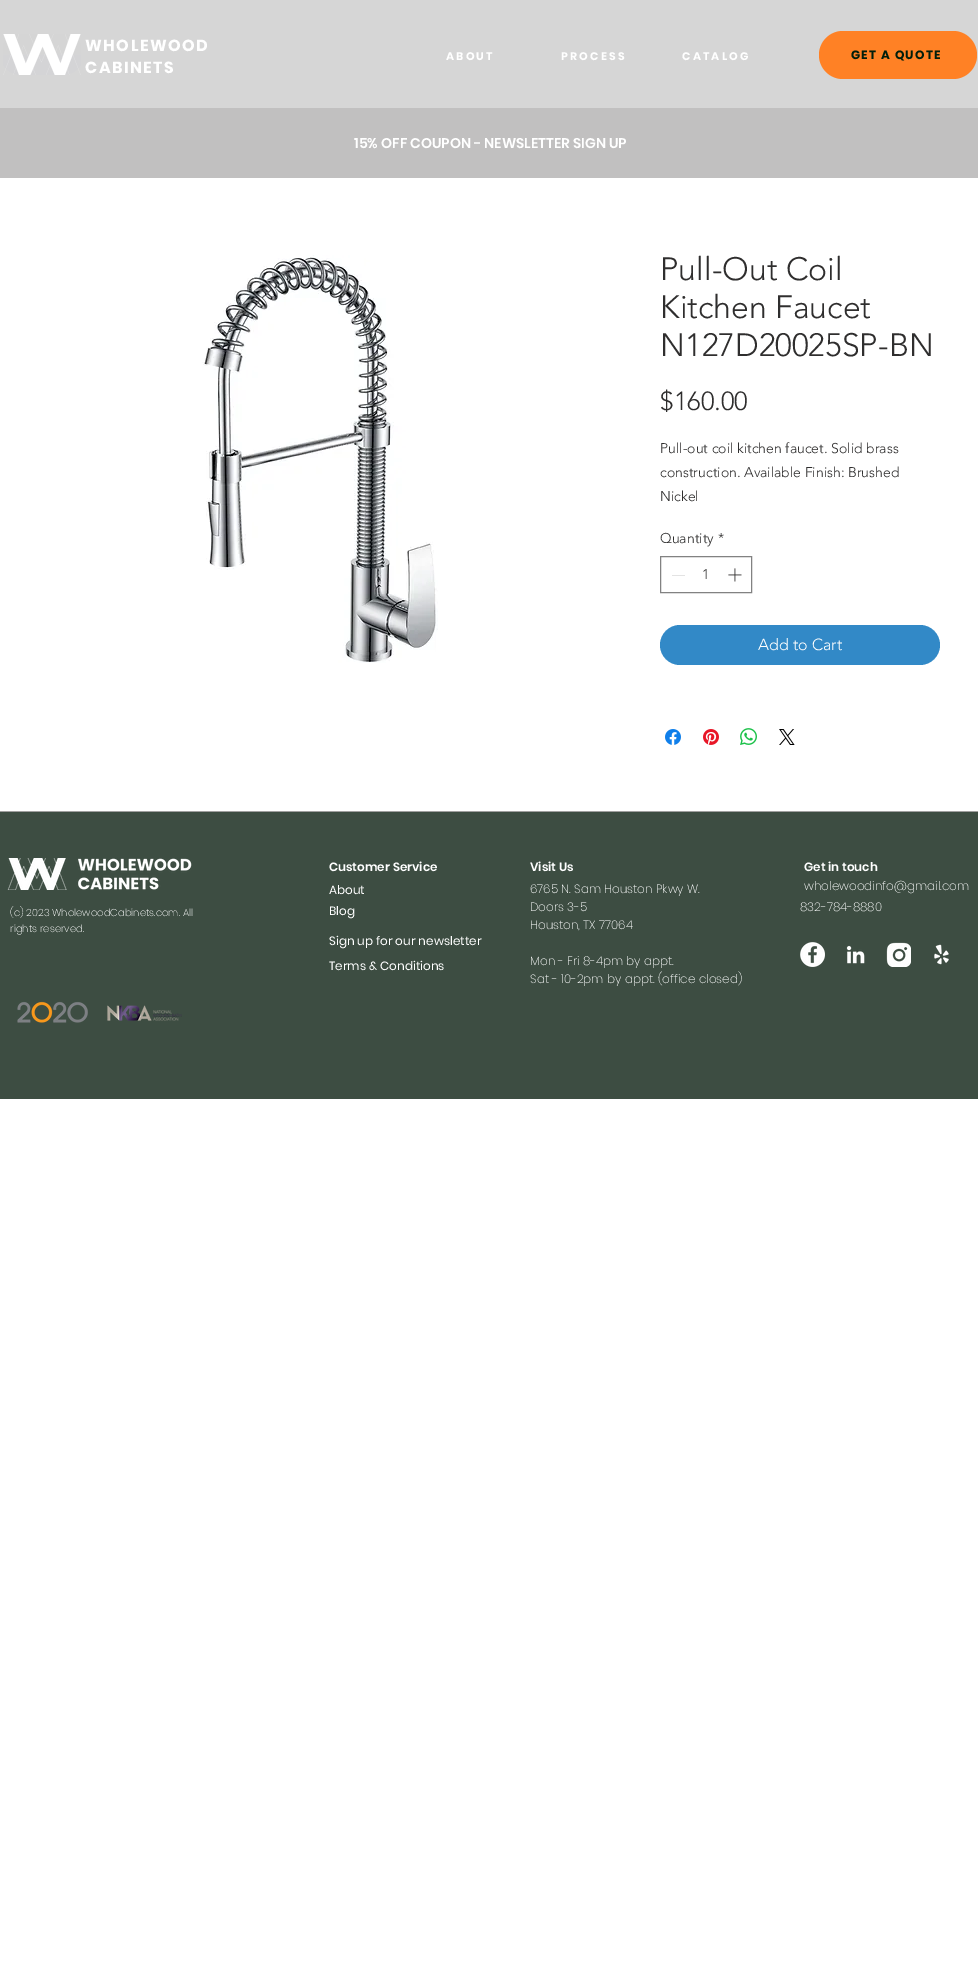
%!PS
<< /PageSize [978 1961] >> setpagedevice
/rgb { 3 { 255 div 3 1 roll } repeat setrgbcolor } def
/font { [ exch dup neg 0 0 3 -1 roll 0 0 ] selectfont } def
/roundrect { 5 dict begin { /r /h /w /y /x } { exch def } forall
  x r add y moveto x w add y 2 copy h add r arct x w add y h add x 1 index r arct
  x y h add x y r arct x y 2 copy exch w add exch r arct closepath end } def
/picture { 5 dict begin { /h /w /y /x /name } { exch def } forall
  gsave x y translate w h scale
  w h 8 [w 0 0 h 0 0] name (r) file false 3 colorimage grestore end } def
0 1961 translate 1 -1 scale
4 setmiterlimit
255 255 255 rgb
0 0 978 1961 rectfill
214 214 214 rgb
0 0 978 108 rectfill
(img/1.rgb) 3 34 78 41 picture
255 129 37 rgb
819 31 158 48 24 roundrect fill
193 192 192 rgb
0 108 978 70 rectfill
(img/2.rgb) 202 255 236 408 picture
130 130 130 rgb
660.5 556.5 91 36 rectstroke
227 227 227 rgb
672 575 13 1 rectfill
(img/3.rgb) 728 568 14 14 picture
50 137 199 rgb
660 625 280 40 20 roundrect fill
(img/4.rgb) 665 729 16 16 picture
(img/5.rgb) 703 729 16 16 picture
(img/6.rgb) 740 728 17 17 picture
(img/7.rgb) 779 729 16 16 picture
61 77 66 rgb
0 812 978 287 rectfill
160 160 159 rgb
0 811 978 1 rectfill
(img/8.rgb) 7 858 185 32 picture
(img/9.rgb) 800 942 25 25 picture
(img/10.rgb) 846 945 19 19 picture
(img/11.rgb) 886 942 25 25 picture
(img/12.rgb) 934 944 15 21 picture
(img/13.rgb) 17 1001 71 22 picture
(img/14.rgb) 107 1005 75 16 picture
/Poppins-Bold 16 font
255 255 255 rgb
85 51 moveto 1.5 0 (WHOLEWOOD) ashow
85 73 moveto 1.5 0 (CABINETS) ashow
/Poppins-Bold 11 font
[
  [(A B O U T) 446 60]
  [(P R O C E S S) 561 60]
  [(C A T A L O G) 682 60]
] { aload pop moveto show } forall
/Poppins-Bold 12 font
0 30 12 rgb
851 59 moveto 1.25 0 (GET A QUOTE) ashow
/Poppins-SemiBold 14 font
255 255 255 rgb
354 148 moveto (15% OFF COUPON - NEWSLETTER SIGN UP) show
/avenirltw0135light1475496-Light 32 font
47 46 46 rgb
[
  [(Pull-Out Coil) 660 280]
  [(Kitchen Faucet) 660 318]
  [(N127D20025SP-BN) 660 356]
] { aload pop moveto show } forall
/avenirltw0135light1475496-Light 26 font
660 410 moveto ($160.00) show
/avenirltw0135light1475496-Light 14 font
[
  [(Pull-out coil kitchen faucet. Solid brass) 660 453]
  [(construction. Available Finish: Brushed) 660 477]
  [(Nickel) 660 501]
  [(Quantity) 660 543]
  [(*) 718 543]
  [(1) 702 579]
] { aload pop moveto show } forall
/avenirltw0135light1475496-Light 16 font
255 255 255 rgb
758 650 moveto (Add to Cart) show
/Poppins-SemiBold 12 font
[
  [(Customer Service) 329 871]
  [(Visit Us) 530 871]
  [(Get in touch) 804 871]
] { aload pop moveto show } forall
/Poppins-Regular 12 font
329 894 moveto (About) show
/Poppins-ExtraLight 12 font
[
  [(6765 N. Sam Houston Pkwy W.) 530 893]
  [(Doors 3-5) 530 911]
  [(Houston, TX 77064) 530 929]
  [(Mon - Fri 8-4pm by appt.) 530 965]
  [(Sat - 10-2pm by appt. \(office closed\)) 530 983]
  [(wholewoodinfo@gmail.com) 804 890]
] { aload pop moveto show } forall
/Poppins-ExtraLight 10 font
10 916 moveto (\(c\) 2023 WholewoodCabinets.com. All) show
10 932 moveto (rights reserved.) show
/Poppins-Regular 12 font
329 915 moveto (Blog) show
/Poppins-ExtraLight 12 font
800 911 moveto (832-784-8880) show
/Poppins-Regular 12 font
329 945 moveto (Sign up for our newsletter) show
329 970 moveto (Terms & Conditions) show
showpage
